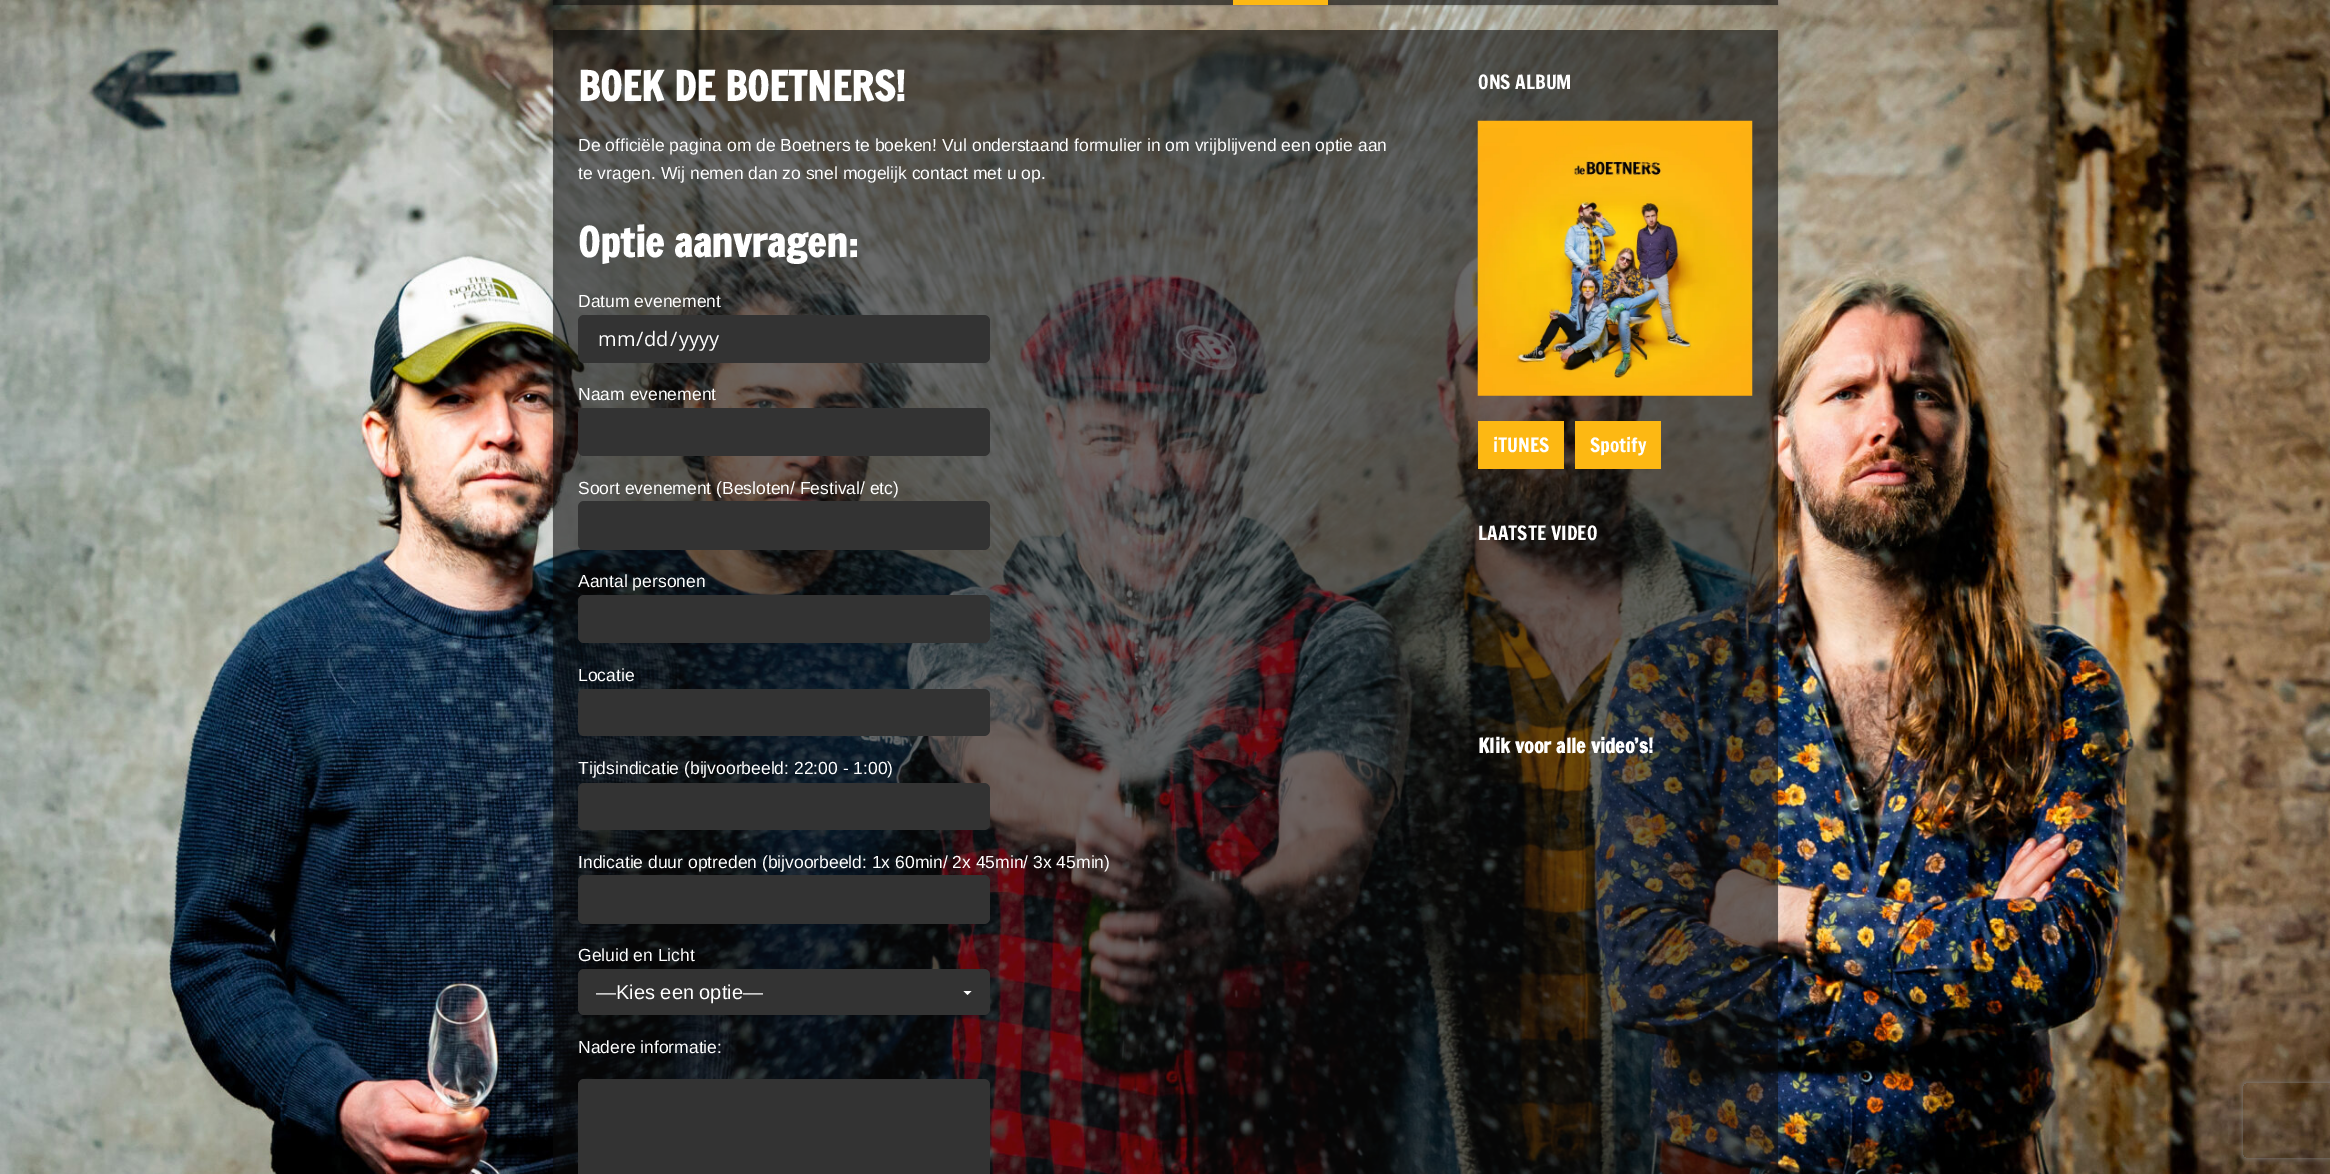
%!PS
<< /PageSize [2330 1174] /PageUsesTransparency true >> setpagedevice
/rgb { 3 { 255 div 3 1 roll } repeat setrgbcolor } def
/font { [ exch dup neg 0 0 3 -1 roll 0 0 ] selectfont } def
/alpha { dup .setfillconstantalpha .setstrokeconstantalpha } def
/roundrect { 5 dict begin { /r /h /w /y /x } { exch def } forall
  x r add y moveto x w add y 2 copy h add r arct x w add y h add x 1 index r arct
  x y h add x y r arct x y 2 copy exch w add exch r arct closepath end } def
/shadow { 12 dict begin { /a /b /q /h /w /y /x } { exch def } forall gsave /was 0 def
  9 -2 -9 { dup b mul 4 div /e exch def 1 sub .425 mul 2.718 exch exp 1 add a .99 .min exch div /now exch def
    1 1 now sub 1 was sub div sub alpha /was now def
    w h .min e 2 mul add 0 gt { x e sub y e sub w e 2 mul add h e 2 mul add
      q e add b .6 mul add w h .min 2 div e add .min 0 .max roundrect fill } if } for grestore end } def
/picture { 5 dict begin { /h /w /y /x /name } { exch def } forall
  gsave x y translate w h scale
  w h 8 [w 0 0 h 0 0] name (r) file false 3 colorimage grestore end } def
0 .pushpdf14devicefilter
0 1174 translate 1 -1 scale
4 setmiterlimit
255 255 255 rgb
0 0 2330 1174 rectfill
(img/1.rgb) 0 0 2330 1174 picture
gsave
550 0 moveto 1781 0 lineto 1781 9 lineto 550 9 lineto closepath 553 -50 moveto 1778 -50 lineto 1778 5 lineto 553 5 lineto closepath eoclip newpath
0 0 0 rgb
553 -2 1225 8 0 0.5 0.1 shadow
grestore
0.6 alpha
10 10 10 rgb
553 0 1225 5 rectfill
1 alpha
253 184 19 rgb
1233 0 95 5 rectfill
gsave
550 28 moveto 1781 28 lineto 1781 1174 lineto 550 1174 lineto closepath 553 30 moveto 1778 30 lineto 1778 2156 lineto 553 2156 lineto closepath eoclip newpath
0 0 0 rgb
553 31 1225 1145 0 0.5 0.1 shadow
grestore
0.6 alpha
10 10 10 rgb
553 30 1225 1144 rectfill
1 alpha
51 51 51 rgb
578 315 412 48 6 roundrect fill
578 408 412 48 6 roundrect fill
578 501 412 49 6 roundrect fill
578 595 412 48 6 roundrect fill
578 689 412 47 6 roundrect fill
578 783 412 47 6 roundrect fill
578 875 412 49 6 roundrect fill
578 969 412 46 6 roundrect fill
255 255 255 rgb
963.5 991 moveto 967.5 995 lineto 971.5 991 lineto closepath fill
51 51 51 rgb
578 1079 412 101 6 roundrect fill
(img/2.rgb) 1477 120 276 276 picture
253 184 19 rgb
1478 421 86 48 rectfill
1575 421 86 48 rectfill
gsave
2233 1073 moveto 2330 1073 lineto 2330 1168 lineto 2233 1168 lineto closepath 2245.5 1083 moveto 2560.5 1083 lineto 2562 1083 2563 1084 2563 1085.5 curveto 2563 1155.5 lineto 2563 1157 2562 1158 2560.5 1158 curveto 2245.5 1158 lineto 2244 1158 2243 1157 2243 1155.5 curveto 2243 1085.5 lineto 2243 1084 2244 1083 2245.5 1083 curveto closepath eoclip newpath
128 128 128 rgb
2243 1083 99 75 2.5 3 1 shadow
grestore
/FrancoisOne-Bold 40 font
255 255 255 rgb
578 101 moveto (BOEK DE BOETNERS!) show
/LiberationSans-Regular 17.5 font
578 151 moveto (De officiële pagina om de Boetners te boeken! Vul onderstaand formulier in om vrijblijvend een optie aan) show
578 179 moveto (te vragen. Wij nemen dan zo snel mogelijk contact met u op.) show
/FrancoisOne-Bold 40 font
578 257 moveto (Optie aanvragen:) show
/LiberationSans-Regular 17.5 font
578 307 moveto (Datum evenement) show
/OpenSans-Regular 20 font
[
  [(mm) 598 346]
  [(/) 636 346]
  [(dd) 644 346]
  [(/) 670 346]
  [(yyyy) 679 346]
] { aload pop moveto show } forall
/LiberationSans-Regular 17.5 font
[
  [(Naam evenement) 578 400]
  [(Soort evenement \(Besloten/ Festival/ etc\)) 578 494]
  [(Aantal personen) 578 587]
  [(Locatie) 578 681]
  [(Tijdsindicatie \(bijvoorbeeld: 22:00 - 1:00\)) 578 774]
  [(Indicatie duur optreden \(bijvoorbeeld: 1x 60min/ 2x 45min/ 3x 45min\)) 578 868]
  [(Geluid en Licht) 578 961]
] { aload pop moveto show } forall
/LiberationSans-Regular 20 font
596 999 moveto (—Kies een optie—) show
/LiberationSans-Regular 17.5 font
578 1053 moveto (Nadere informatie:) show
/FrancoisOne-Regular 19.25 font
[
  [(ONS ALBUM) 1478 89]
  [(iTUNES) 1493 452]
  [(Spotify) 1590 452]
  [(LAATSTE VIDEO) 1478 540]
] { aload pop moveto show } forall
/FrancoisOne-Bold 20 font
1478 753 moveto (Klik voor alle video’s!) show
.poppdf14devicefilter showpage
